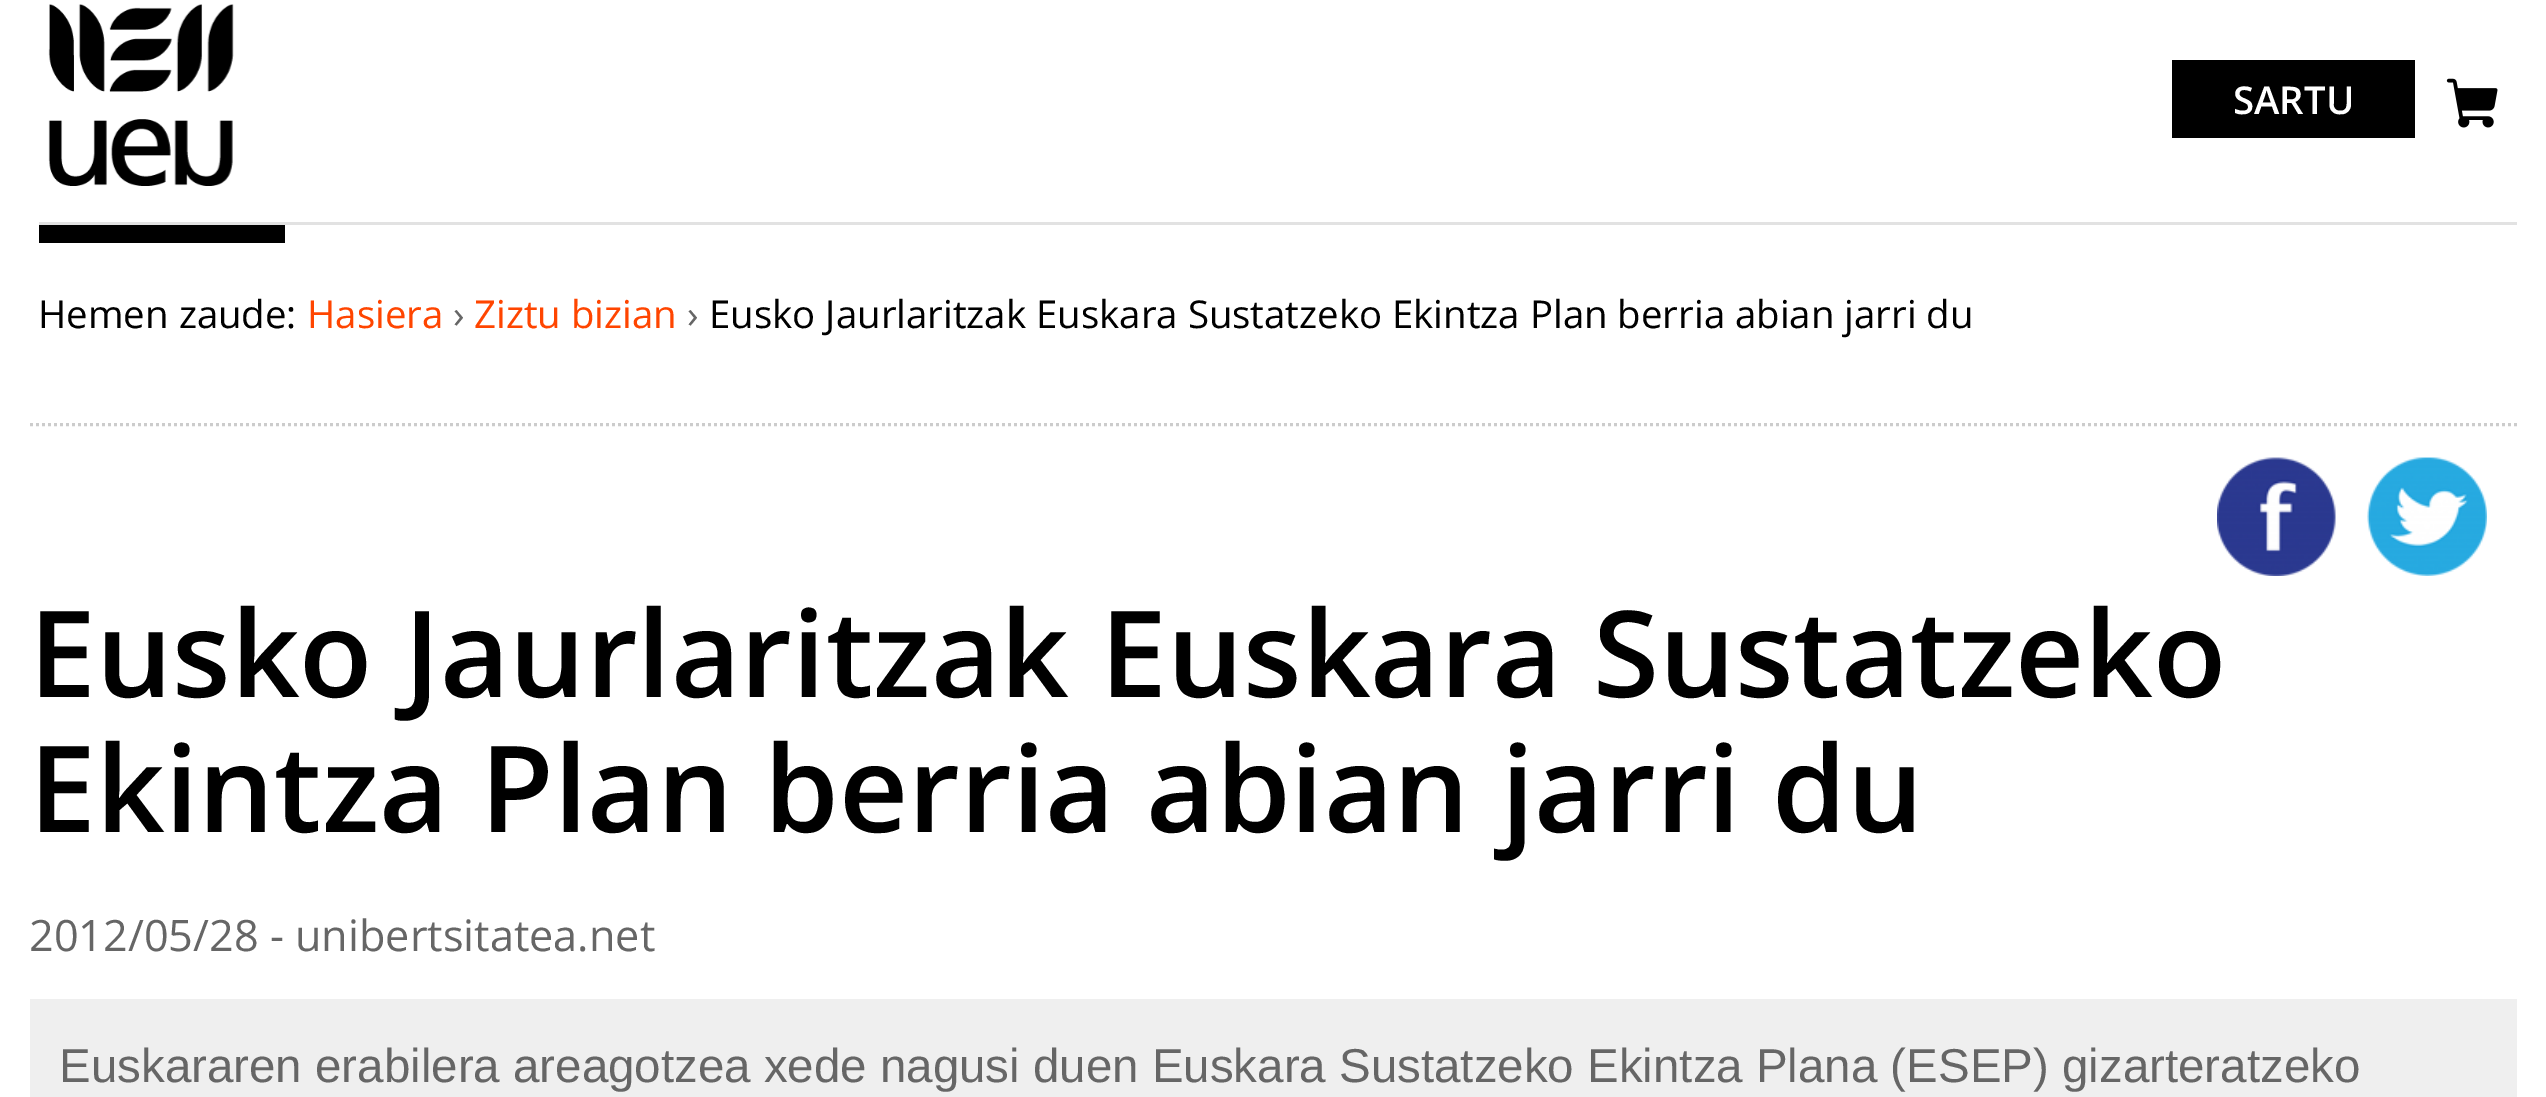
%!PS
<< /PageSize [2546 1097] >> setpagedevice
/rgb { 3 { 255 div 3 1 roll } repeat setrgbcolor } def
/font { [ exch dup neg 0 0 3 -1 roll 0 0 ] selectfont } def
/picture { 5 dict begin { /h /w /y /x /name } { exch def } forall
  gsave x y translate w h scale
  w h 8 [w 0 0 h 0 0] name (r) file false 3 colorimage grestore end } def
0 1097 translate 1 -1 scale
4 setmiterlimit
255 255 255 rgb
0 0 2546 1097 rectfill
(img/1.rgb) 48 4 186 182 picture
0 0 0 rgb
2172 60 243 78 rectfill
(img/2.rgb) 2446 78 52 50 picture
226 226 226 rgb
39 222 2478 3 rectfill
0 0 0 rgb
39 225 246 18 rectfill
204 204 204 rgb
3 setlinewidth
[3 3] 0 setdash
30 424.5 moveto 2517 424.5 lineto stroke
(img/3.rgb) 2217 457 119 119 picture
(img/4.rgb) 2367 457 120 119 picture
239 239 239 rgb
30 999 2487 98 rectfill
/OpenSans-SemiBold 38.4 font
255 255 255 rgb
2233 114 moveto (SARTU) show
/OpenSans-Regular 38.4 font
0 0 0 rgb
38 328 moveto (Hemen zaude:) show
255 69 0 rgb
307 328 moveto (Hasiera) show
102 102 102 rgb
453 328 moveto (›) show
255 69 0 rgb
474 328 moveto (Ziztu bizian) show
102 102 102 rgb
687 328 moveto (›) show
0 0 0 rgb
709 328 moveto (Eusko Jaurlaritzak Euskara Sustatzeko Ekintza Plan berria abian jarri du) show
/OpenSans-SemiBold 120 font
29 697 moveto (Eusko Jaurlaritzak Euskara Sustatzeko) show
29 832 moveto (Ekintza Plan berria abian jarri du) show
/OpenSans-Regular 43.25 font
102 102 102 rgb
29 951 moveto (2012/05/28 - unibertsitatea.net) show
/LiberationSans-Regular 47.5 font
59 1082 moveto -0.1 0 32 (Euskararen erabilera areagotzea xede nagusi duen Euskara Sustatzeko Ekintza Plana \(ESEP\) gizarteratzeko) widthshow
showpage
